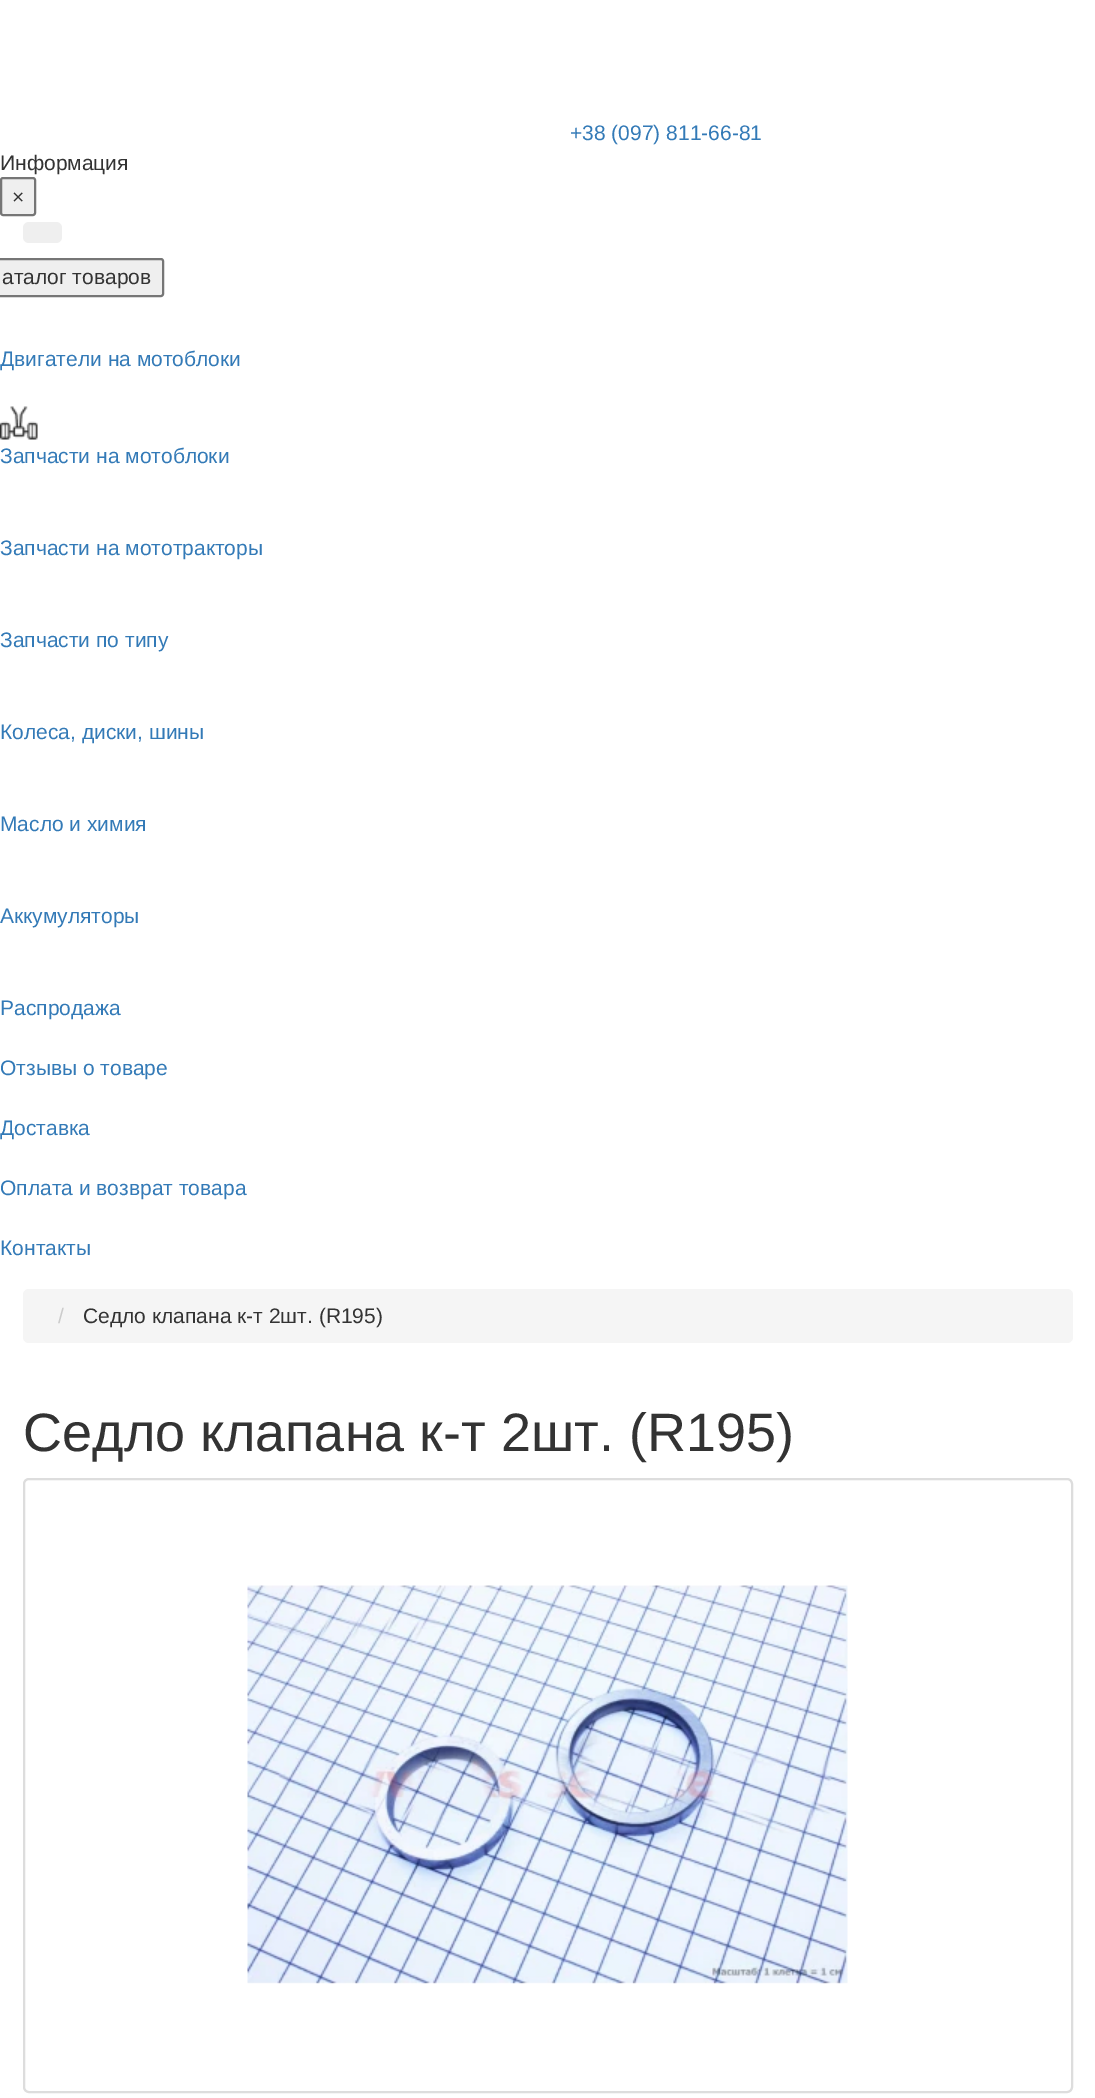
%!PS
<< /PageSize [1095 2098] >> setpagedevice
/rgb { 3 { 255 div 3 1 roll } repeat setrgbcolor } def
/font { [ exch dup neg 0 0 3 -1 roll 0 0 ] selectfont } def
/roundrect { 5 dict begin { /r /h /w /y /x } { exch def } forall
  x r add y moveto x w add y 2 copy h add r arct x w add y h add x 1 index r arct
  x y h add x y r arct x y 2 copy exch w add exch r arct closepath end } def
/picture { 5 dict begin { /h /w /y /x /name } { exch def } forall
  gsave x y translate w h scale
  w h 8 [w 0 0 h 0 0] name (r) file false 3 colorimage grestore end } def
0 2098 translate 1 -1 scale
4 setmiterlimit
255 255 255 rgb
0 0 1095 2098 rectfill
239 239 239 rgb
1 178 34 37 2 roundrect gsave fill grestore
118 118 118 rgb
2 setlinewidth
stroke
239 239 239 rgb
23 222 39 21 6 roundrect fill
-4 259 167 37 2 roundrect gsave fill grestore
118 118 118 rgb
stroke
(img/1.rgb) 0 406 38 34 picture
245 245 245 rgb
23 1289 1050 54 6 roundrect fill
221 221 221 rgb
24 1479 1048 613 5 roundrect stroke
(img/2.rgb) 247 1585 601 399 picture
/LiberationSans-Regular 21 font
51 122 183 rgb
570 140 moveto (+38 \(097\) 811-66-81) show
51 51 51 rgb
[
  [(Информация) 0 170]
  [(×) 12 204]
  [(аталог товаров) 2 284]
] { aload pop moveto show } forall
51 122 183 rgb
[
  [(Двигатели на мотоблоки) 0 366]
  [(Запчасти на мотоблоки) 0 463]
  [(Запчасти на мототракторы) 0 555]
  [(Запчасти по типу) 0 647]
  [(Колеса, диски, шины) 0 739]
  [(Масло и химия) 0 831]
  [(Аккумуляторы) 0 923]
  [(Распродажа) 0 1015]
  [(Отзывы о товаре) 0 1075]
  [(Доставка) 0 1135]
  [(Оплата и возврат товара) 0 1195]
  [(Контакты) 0 1255]
] { aload pop moveto show } forall
204 204 204 rgb
58 1323 moveto (/) show
51 51 51 rgb
83 1323 moveto (Седло клапана к-т 2шт. \(R195\)) show
/LiberationSans-Regular 54 font
23 1451 moveto (Седло клапана к-т 2шт. \(R195\)) show
showpage
